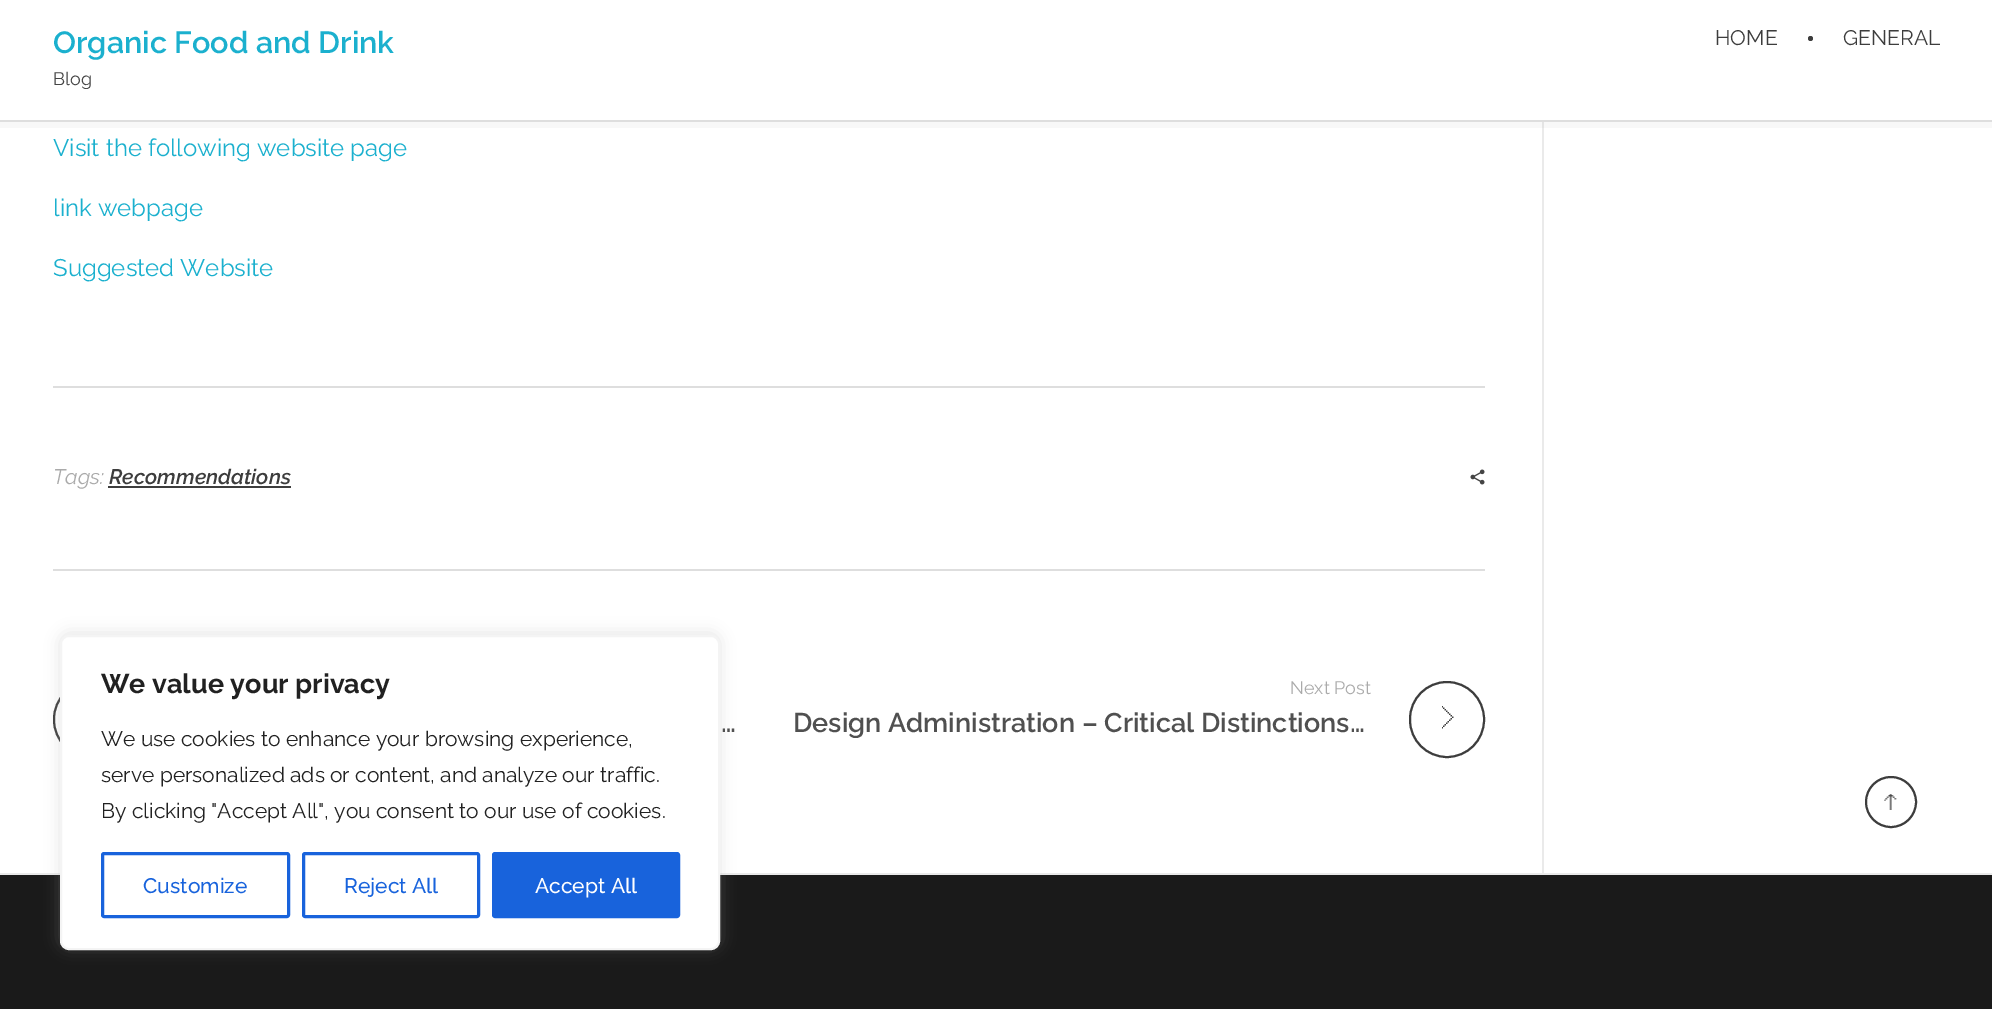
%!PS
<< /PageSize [1992 1009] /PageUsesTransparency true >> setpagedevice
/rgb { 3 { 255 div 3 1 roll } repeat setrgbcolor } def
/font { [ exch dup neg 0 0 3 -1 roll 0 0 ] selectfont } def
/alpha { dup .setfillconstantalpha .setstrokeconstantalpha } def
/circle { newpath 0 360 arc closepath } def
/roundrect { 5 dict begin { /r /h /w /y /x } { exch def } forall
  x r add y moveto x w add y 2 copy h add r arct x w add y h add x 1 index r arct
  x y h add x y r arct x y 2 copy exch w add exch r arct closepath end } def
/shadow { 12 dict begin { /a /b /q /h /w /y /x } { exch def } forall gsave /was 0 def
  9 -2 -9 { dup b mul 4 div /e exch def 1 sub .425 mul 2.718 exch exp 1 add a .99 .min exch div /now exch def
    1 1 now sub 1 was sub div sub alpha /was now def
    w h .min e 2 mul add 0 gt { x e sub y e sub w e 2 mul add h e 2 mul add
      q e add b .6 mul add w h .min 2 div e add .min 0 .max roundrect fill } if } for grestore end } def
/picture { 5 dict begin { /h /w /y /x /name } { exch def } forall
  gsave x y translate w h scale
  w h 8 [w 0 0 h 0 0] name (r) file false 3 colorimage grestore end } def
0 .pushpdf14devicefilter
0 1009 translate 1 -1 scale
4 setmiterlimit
255 255 255 rgb
0 0 1992 1009 rectfill
248 248 248 rgb
0 122 1992 6 rectfill
222 222 222 rgb
0 120 1992 2 rectfill
61 61 61 rgb
1810.5 38.5 2.5 circle fill
[
  [53 386 1432 2 222 222 222]
  [53 569 1432 2 222 222 222]
  [108 486 183 2 61 61 61]
] { aload pop rgb rectfill } forall
(img/1.rgb) 1470 469 15 16 picture
2 setlinewidth
54 682 74 75 37 roundrect stroke
1410 682 74 75 37 roundrect stroke
(img/2.rgb) 1442 706 12 23 picture
[
  [1542 128 2 745 234 234 234]
  [1542 122 2 6 228 228 228]
  [0 875 1992 134 26 26 26]
  [0 873 1992 2 234 234 234]
] { aload pop rgb rectfill } forall
172 171 171 rgb
60 633 660 315 9 7.5 0.3 shadow
255 255 255 rgb
61 636 658 313 8 roundrect gsave fill grestore
244 244 244 rgb
stroke
24 99 220 rgb
3 setlinewidth
102.5 853.5 186 63 1.5 roundrect stroke
303.5 853.5 175 63 1.5 roundrect stroke
493.5 853.5 185 63 1.5 roundrect gsave fill grestore
stroke
61 61 61 rgb
2 setlinewidth
1891 802 25 circle stroke
(img/3.rgb) 1884 794 13 16 picture
/Raleway-SemiBold 30.6 font
27 176 206 rgb
53 53 moveto (Organic Food and Drink) show
/Raleway-Regular 18 font
68 68 68 rgb
53 85 moveto (Blog) show
/Raleway-Regular 21 font
61 61 61 rgb
1715 45 moveto (HOME) show
1843 45 moveto (GENERAL) show
/Raleway-Regular 24 font
27 176 206 rgb
[
  [(Visit the following website page) 53 156]
  [(link webpage) 53 216]
  [(Suggested Website) 53 276]
] { aload pop moveto show } forall
/Raleway-Italic 21 font
170 170 170 rgb
53 484 moveto (Tags:) show
/Raleway-SemiBoldItalic 21 font
61 61 61 rgb
109 484 moveto (Recommendations) show
/Raleway-SemiBold 27 font
80 80 80 rgb
721 732 moveto (…) show
/Raleway-Regular 18 font
170 170 170 rgb
1290 694 moveto (Next Post) show
/Raleway-SemiBold 27 font
80 80 80 rgb
793 732 moveto (Design Administration – Critical Distinctions…) show
/Raleway-Bold 27 font
33 33 33 rgb
101 693 moveto (We value your privacy) show
/Raleway-Regular 21 font
[
  [(We use cookies to enhance your browsing experience,) 101 746]
  [(serve personalized ads or content, and analyze our traffic.) 101 782]
  [(By clicking "Accept All", you consent to our use of cookies.) 101 818]
] { aload pop moveto show } forall
/Raleway-Medium 21 font
24 99 220 rgb
143 893 moveto (Customize) show
344 893 moveto (Reject All) show
255 255 255 rgb
535 893 moveto (Accept All) show
.poppdf14devicefilter showpage
